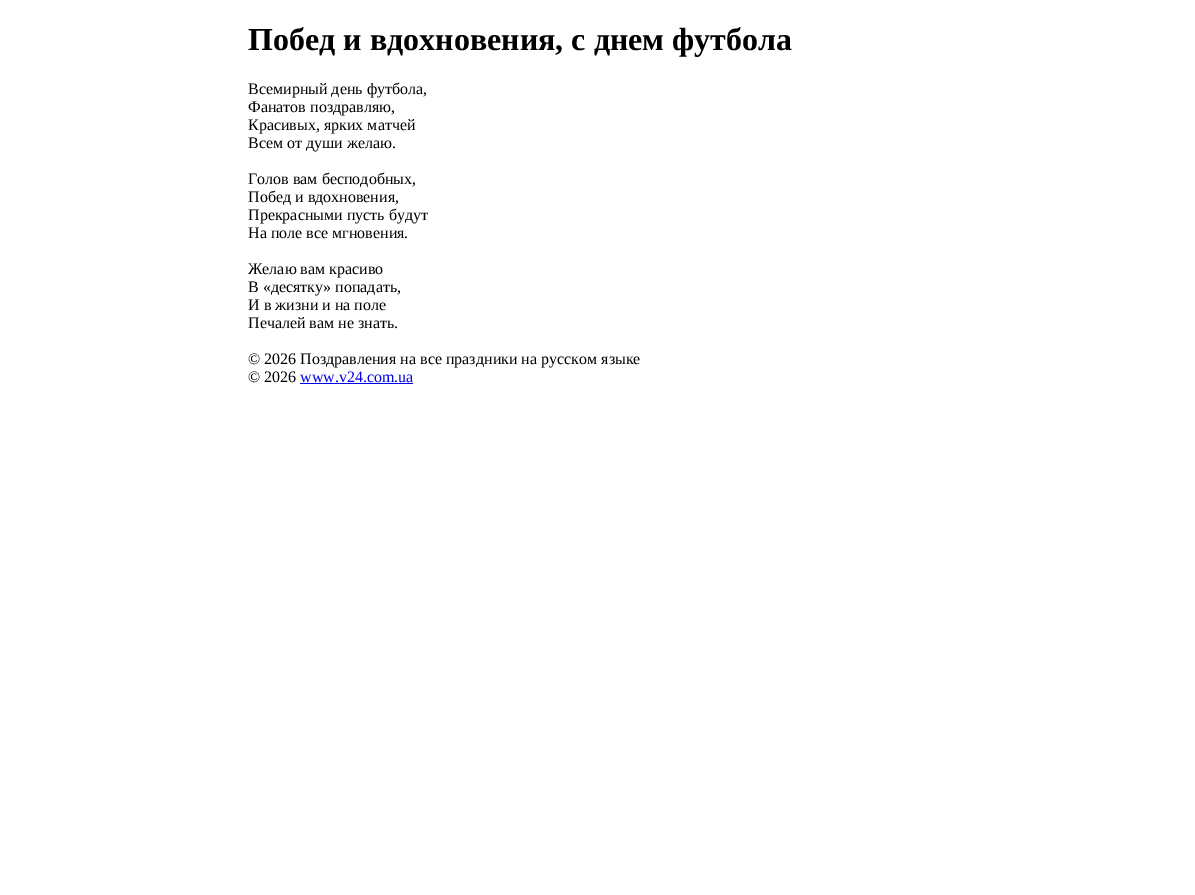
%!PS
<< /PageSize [1195 895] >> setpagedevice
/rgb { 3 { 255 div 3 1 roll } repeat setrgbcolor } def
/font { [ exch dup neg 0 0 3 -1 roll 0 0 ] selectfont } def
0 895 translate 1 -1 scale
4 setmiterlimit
255 255 255 rgb
0 0 1195 895 rectfill
0 0 238 rgb
300 383 113 1 rectfill
/LiberationSerif-Bold 32 font
0 0 0 rgb
248 50 moveto (Побед и вдохновения, с днем футбола) show
/LiberationSerif-Regular 16 font
[
  [(Всемирный день футбола,) 248 94]
  [(Фанатов поздравляю,) 248 112]
  [(Красивых, ярких матчей) 248 130]
  [(Всем от души желаю.) 248 148]
  [(Голов вам бесподобных,) 248 184]
  [(Побед и вдохновения,) 248 202]
  [(Прекрасными пусть будут) 248 220]
  [(На поле все мгновения.) 248 238]
  [(Желаю вам красиво) 248 274]
  [(В «десятку» попадать,) 248 292]
  [(И в жизни и на поле) 248 310]
  [(Печалей вам не знать.) 248 328]
  [(© 2026 Поздравления на все праздники на русском языке) 248 364]
  [(© 2026) 248 382]
] { aload pop moveto show } forall
0 0 238 rgb
300 382 moveto (www.v24.com.ua) show
showpage
